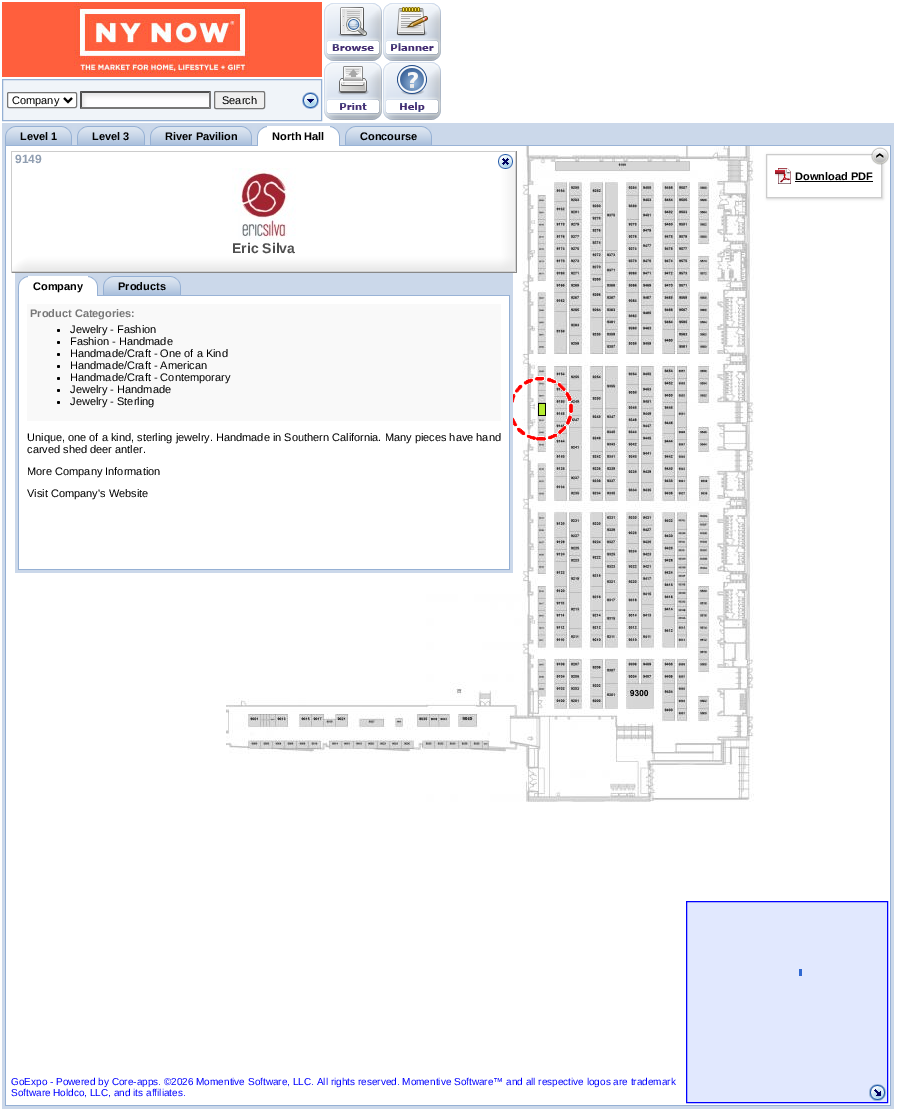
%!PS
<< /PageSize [898 1111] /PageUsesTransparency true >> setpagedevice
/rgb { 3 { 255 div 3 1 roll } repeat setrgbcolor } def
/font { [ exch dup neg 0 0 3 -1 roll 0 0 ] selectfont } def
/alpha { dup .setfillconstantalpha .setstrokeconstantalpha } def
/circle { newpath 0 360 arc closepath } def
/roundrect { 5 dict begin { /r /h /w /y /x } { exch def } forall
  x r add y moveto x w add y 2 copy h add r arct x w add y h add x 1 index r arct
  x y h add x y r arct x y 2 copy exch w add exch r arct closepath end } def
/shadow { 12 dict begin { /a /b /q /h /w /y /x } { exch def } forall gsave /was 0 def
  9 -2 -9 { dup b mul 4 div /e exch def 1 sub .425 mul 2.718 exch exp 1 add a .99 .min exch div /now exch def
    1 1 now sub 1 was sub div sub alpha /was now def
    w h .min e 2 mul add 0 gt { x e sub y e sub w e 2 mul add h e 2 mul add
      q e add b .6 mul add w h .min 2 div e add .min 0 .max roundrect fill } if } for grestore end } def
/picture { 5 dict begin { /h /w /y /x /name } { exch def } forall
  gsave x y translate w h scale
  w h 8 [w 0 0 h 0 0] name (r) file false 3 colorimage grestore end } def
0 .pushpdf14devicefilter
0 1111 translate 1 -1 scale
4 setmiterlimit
255 255 255 rgb
0 0 898 1111 rectfill
(img/1.rgb) 2 2 320 75 picture
(img/2.rgb) 324 3 58 58 picture
(img/3.rgb) 383 3 58 58 picture
(img/4.rgb) 324 62 58 58 picture
(img/5.rgb) 383 62 58 58 picture
240 244 249 rgb
2.5 79.5 moveto 321.5 79.5 lineto 321.5 120.5 lineto 2.5 120.5 lineto closepath gsave fill grestore
149 176 212 rgb
stroke
255 255 255 rgb
7.5 92.5 69 15 1.5 roundrect gsave fill grestore
118 118 118 rgb
stroke
0 0 0 rgb
2 setlinewidth
64 98 moveto 68 102 lineto 72 98 lineto stroke
(img/6.rgb) 82 93 129 16 picture
79 79 79 rgb
80 91 moveto 211 91 lineto 209 93 lineto 82 93 lineto closepath fill
118 118 118 rgb
211 91 moveto 211 109 lineto 209 107 lineto 209 93 lineto closepath fill
211 109 moveto 80 109 lineto 82 107 lineto 209 107 lineto closepath fill
79 79 79 rgb
80 109 moveto 80 91 lineto 82 93 lineto 82 107 lineto closepath fill
239 239 239 rgb
214.5 91.5 50 17 1.5 roundrect gsave fill grestore
118 118 118 rgb
1 setlinewidth
stroke
(img/7.rgb) 302 92 17 17 picture
203 216 234 rgb
2 123 892 986 rectfill
153 179 214 rgb
5 145 886 1 rectfill
(img/8.rgb) 5 126 10 19 picture
(img/9.rgb) 15 126 47 19 picture
(img/10.rgb) 62 126 10 19 picture
(img/8.rgb) 77 126 10 19 picture
(img/11.rgb) 87 126 48 19 picture
(img/10.rgb) 135 126 10 19 picture
(img/8.rgb) 150 126 10 19 picture
(img/12.rgb) 160 126 82 19 picture
(img/10.rgb) 242 126 10 19 picture
(img/13.rgb) 257 126 10 20 picture
255 255 255 rgb
267 126 63 20 rectfill
(img/14.rgb) 330 126 10 20 picture
(img/8.rgb) 345 126 10 19 picture
(img/15.rgb) 355 126 67 19 picture
(img/10.rgb) 422 126 10 19 picture
[
  [6 146 884 959 255 255 255]
  [890 146 1 960 149 176 212]
  [5 1105 886 1 149 176 212]
  [5 146 1 960 149 176 212]
] { aload pop rgb rectfill } forall
(img/16.rgb) 12 152 504 120 picture
[
  [11 151 506 1 204 204 204]
  [516 151 1 122 136 136 136]
  [11 272 506 1 136 136 136]
  [11 151 1 122 204 204 204]
] { aload pop rgb rectfill } forall
(img/17.rgb) 498 154 15 15 picture
(img/18.rgb) 232 168 64 72 picture
(img/28.rgb) 426 546 200 200 picture
203 216 234 rgb
15 273 498 300 rectfill
153 179 214 rgb
98 295 412 1 rectfill
(img/13.rgb) 18 276 10 20 picture
255 255 255 rgb
28 276 60 20 rectfill
(img/14.rgb) 88 276 10 20 picture
(img/8.rgb) 103 276 10 19 picture
(img/19.rgb) 113 276 58 19 picture
(img/10.rgb) 171 276 10 19 picture
[
  [19 296 490 273 255 255 255]
  [509 296 1 274 149 176 212]
  [18 569 492 1 149 176 212]
  [18 296 1 274 149 176 212]
  [27 304 474 117 249 249 249]
] { aload pop rgb rectfill } forall
0 0 0 rgb
58.5 330.5 1.5 circle fill
58.5 342.5 1.5 circle fill
58.5 354.5 1.5 circle fill
58.5 366.5 1.5 circle fill
58.5 378.5 1.5 circle fill
58.5 390.5 1.5 circle fill
58.5 402.5 1.5 circle fill
gsave
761 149 moveto 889 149 lineto 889 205 lineto 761 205 lineto closepath 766 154 moveto 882 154 lineto 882 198 lineto 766 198 lineto closepath eoclip newpath
214 214 214 rgb
767 155 116 44 0 1.5 1 shadow
grestore
204 204 204 rgb
766.5 154.5 115 43 rectstroke
(img/20.rgb) 871 147 18 18 picture
(img/21.rgb) 775 168 16 16 picture
0 0 0 rgb
795 181 78 1 rectfill
(img/22.rgb) 522 146 104 200 picture
(img/23.rgb) 626 146 128 200 picture
(img/24.rgb) 522 346 96 200 picture
(img/25.rgb) 626 346 128 200 picture
181 236 49 rgb
538.5 403.5 moveto 545.5 403.5 lineto 545.5 415.5 lineto 538.5 415.5 lineto closepath gsave fill grestore
0 0 0 rgb
stroke
(img/26.rgb) 513 376 60 65 picture
(img/27.rgb) 226 698 200 48 picture
(img/29.rgb) 626 546 128 200 picture
(img/30.rgb) 229 746 197 8 picture
(img/31.rgb) 426 746 200 56 picture
(img/32.rgb) 626 746 128 56 picture
34 96 199 rgb
799 969 3 7 rectfill
0.2 alpha
105 140 250 rgb
686.5 901.5 moveto 887.5 901.5 lineto 887.5 1102.5 lineto 686.5 1102.5 lineto closepath fill
1 alpha
0 0 255 rgb
686.5 901.5 moveto 887.5 901.5 lineto 887.5 1102.5 lineto 686.5 1102.5 lineto closepath stroke
(img/33.rgb) 869 1084 17 17 picture
/LiberationSans-Regular 11 font
0 0 0 rgb
12 104 moveto (Company) show
222 104 moveto (Search) show
/LiberationSans-Bold 11 font
[
  [(Level 1) 20 140]
  [(Level 3) 92 140]
  [(River Pavilion) 165 140]
  [(North Hall) 272 140]
  [(Concourse) 360 140]
] { aload pop moveto show } forall
/LiberationSans-Bold 12 font
144 158 177 rgb
15 163 moveto (9149) show
/LiberationSans-Bold 14 font
79 79 79 rgb
232 253 moveto (Eric Silva) show
/LiberationSans-Bold 11 font
0 0 0 rgb
33 290 moveto (Company) show
118 290 moveto (Products) show
119 119 119 rgb
30 317 moveto (Product Categories:) show
/LiberationSans-Regular 11 font
0 0 0 rgb
[
  [(Jewelry - Fashion) 70 333]
  [(Fashion - Handmade) 70 345]
  [(Handmade/Craft - One of a Kind) 70 357]
  [(Handmade/Craft - American) 70 369]
  [(Handmade/Craft - Contemporary) 70 381]
  [(Jewelry - Handmade) 70 393]
  [(Jewelry - Sterling) 70 405]
  [(Unique, one of a kind, sterling jewelry. Handmade in Southern California. Many pieces have hand) 27 441]
  [(carved shed deer antler.) 27 453]
  [(More Company Information) 27 475]
  [(Visit Company's Website) 27 497]
] { aload pop moveto show } forall
/LiberationSans-Bold 11 font
795 180 moveto (Download PDF) show
/LiberationSans-Regular 10 font
0 0 255 rgb
11 1085 moveto (GoExpo - Powered by Core-apps. ©2026 Momentive Software, LLC. All rights reserved. Momentive Software™ and all respective logos are trademark) show
11 1096 moveto (Software Holdco, LLC, and its affiliates.) show
.poppdf14devicefilter showpage
